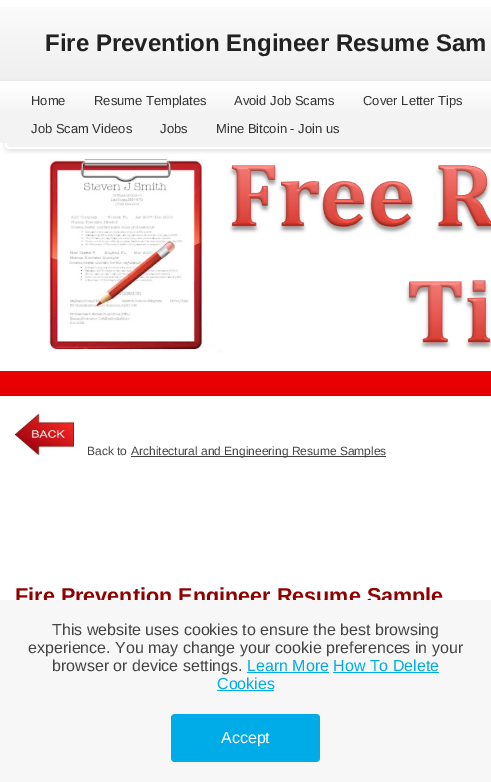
%!PS
<< /PageSize [491 782] >> setpagedevice
/rgb { 3 { 255 div 3 1 roll } repeat setrgbcolor } def
/font { [ exch dup neg 0 0 3 -1 roll 0 0 ] selectfont } def
/roundrect { 5 dict begin { /r /h /w /y /x } { exch def } forall
  x r add y moveto x w add y 2 copy h add r arct x w add y h add x 1 index r arct
  x y h add x y r arct x y 2 copy exch w add exch r arct closepath end } def
/picture { 5 dict begin { /h /w /y /x /name } { exch def } forall
  gsave x y translate w h scale
  w h 8 [w 0 0 h 0 0] name (r) file false 3 colorimage grestore end } def
0 782 translate 1 -1 scale
4 setmiterlimit
255 255 255 rgb
0 0 491 782 rectfill
(img/1.rgb) 0 7 491 136 picture
(img/2.rgb) 2 143 8 11 picture
(img/3.rgb) 48 159 443 194 picture
(img/4.rgb) 10 143 481 11 picture
(img/5.rgb) 0 371 491 25 picture
(img/6.rgb) 15 414 59 41 picture
68 68 68 rgb
131 456 255 1 rectfill
/LiberationSans-Bold 24 font
34 34 34 rgb
45 51 moveto (Fire Prevention Engineer Resume Sam) show
/LiberationSans-Regular 13 font
51 51 51 rgb
[
  [(Home) 31 105]
  [(Resume Templates) 94 105]
  [(Avoid Job Scams) 234 105]
  [(Cover Letter Tips) 363 105]
  [(Job Scam Videos) 31 133]
  [(Jobs) 160 133]
  [(Mine Bitcoin - Join us) 216 133]
] { aload pop moveto show } forall
/LiberationSans-Regular 12 font
68 68 68 rgb
87 455 moveto (Back to) show
131 455 moveto (Architectural and Engineering Resume Samples) show
/LiberationSans-Bold 21.6 font
144 0 0 rgb
15 603 moveto (Fire Prevention Engineer Resume Sample) show
247 247 247 rgb
0 600 491 182 rectfill
/LiberationSans-Regular 16 font
68 68 68 rgb
[
  [(This website uses cookies to ensure the best browsing) 52 635]
  [(experience. You may change your cookie preferences in your) 28 653]
  [(browser or device settings.) 52 671]
] { aload pop moveto show } forall
0 172 230 rgb
247 671 moveto (Learn More How To Delete) show
247 672 82 1 rectfill
217 689 moveto (Cookies) show
333 672 106 1 rectfill
217 690 57 1 rectfill
0 172 232 rgb
171 714 149 48 4 roundrect fill
255 255 255 rgb
221 743 moveto (Accept) show
showpage
